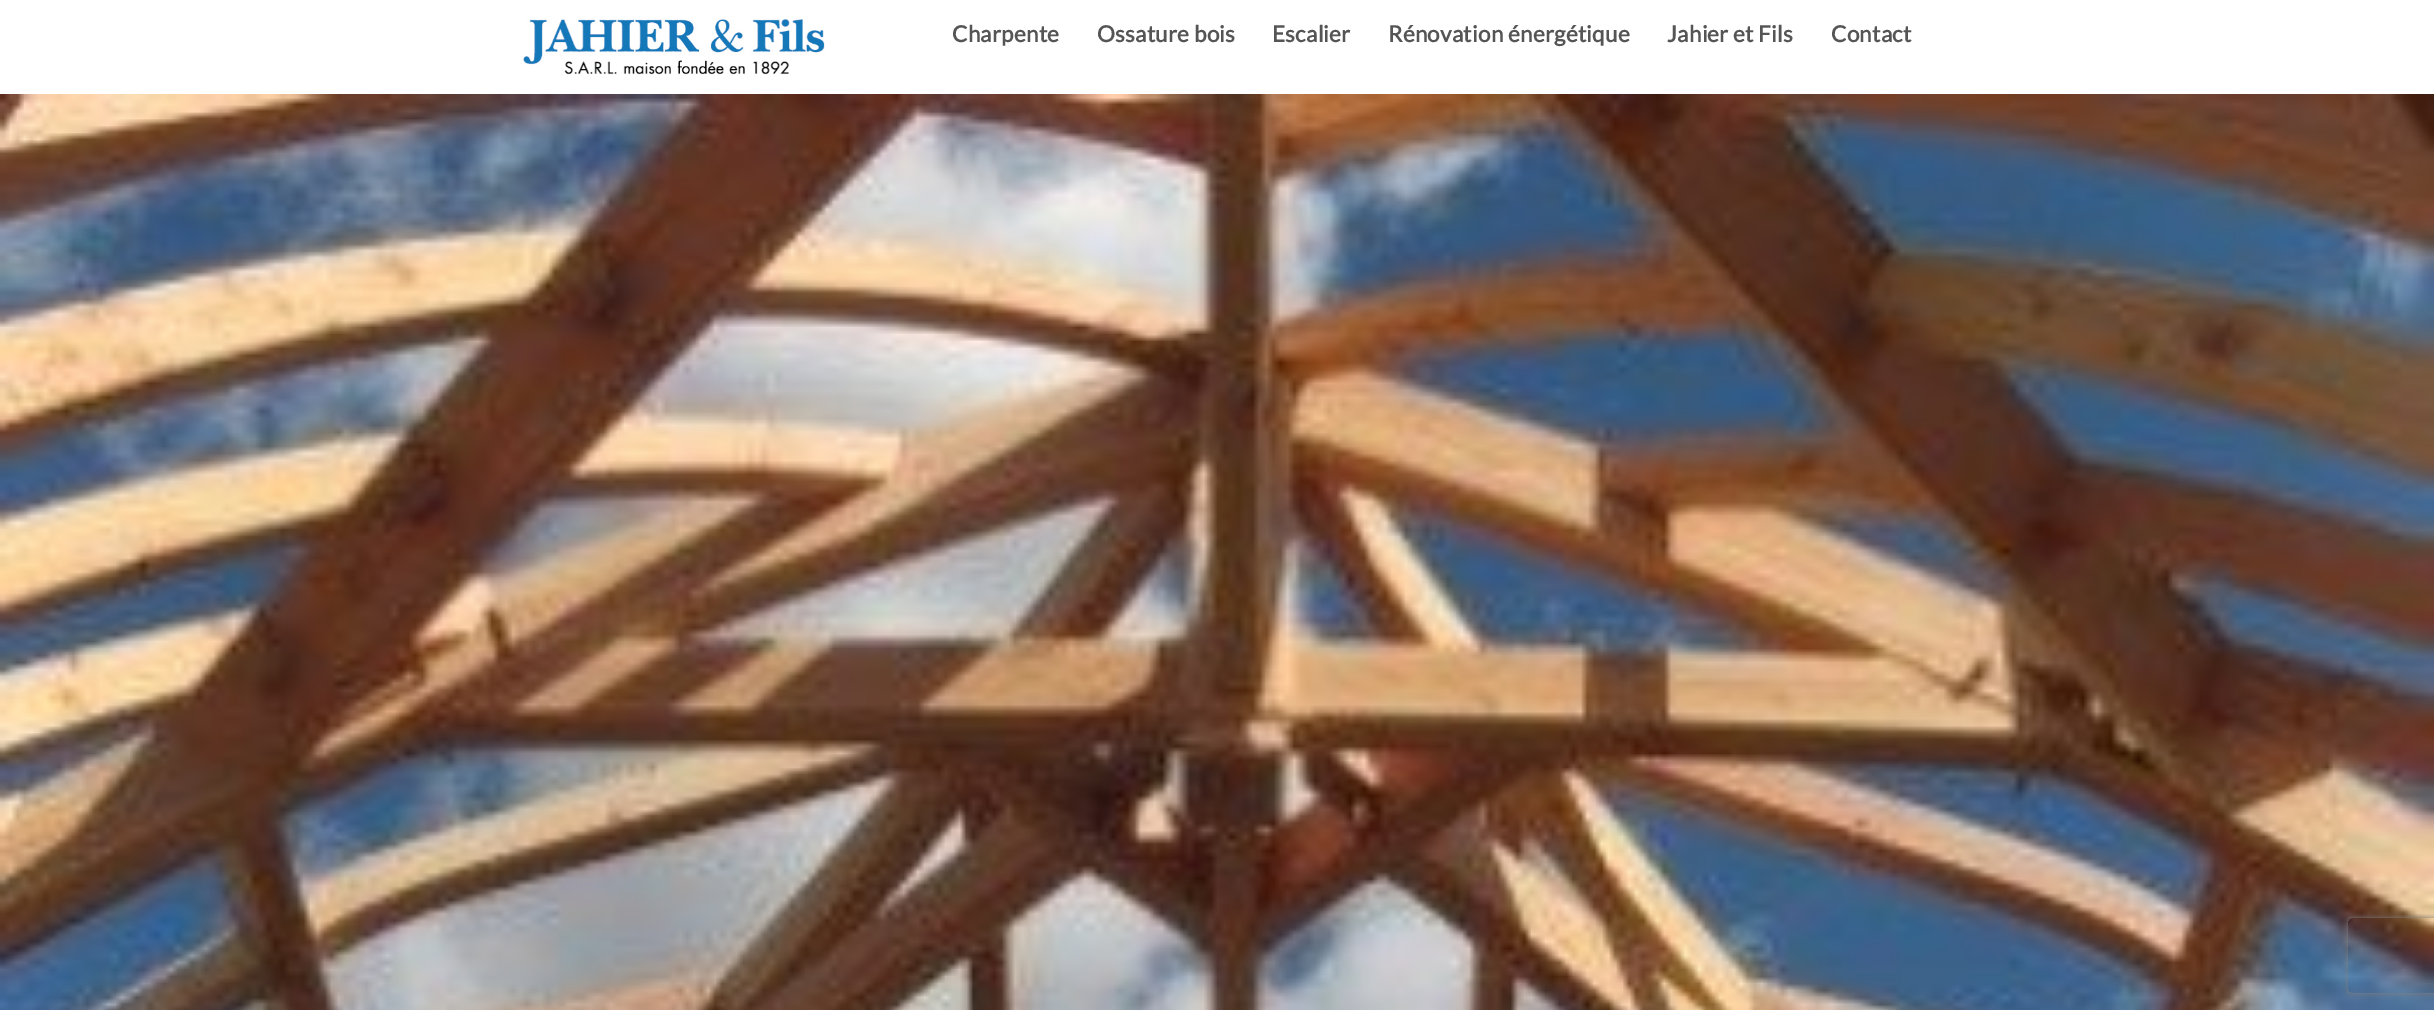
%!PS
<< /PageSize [2434 1010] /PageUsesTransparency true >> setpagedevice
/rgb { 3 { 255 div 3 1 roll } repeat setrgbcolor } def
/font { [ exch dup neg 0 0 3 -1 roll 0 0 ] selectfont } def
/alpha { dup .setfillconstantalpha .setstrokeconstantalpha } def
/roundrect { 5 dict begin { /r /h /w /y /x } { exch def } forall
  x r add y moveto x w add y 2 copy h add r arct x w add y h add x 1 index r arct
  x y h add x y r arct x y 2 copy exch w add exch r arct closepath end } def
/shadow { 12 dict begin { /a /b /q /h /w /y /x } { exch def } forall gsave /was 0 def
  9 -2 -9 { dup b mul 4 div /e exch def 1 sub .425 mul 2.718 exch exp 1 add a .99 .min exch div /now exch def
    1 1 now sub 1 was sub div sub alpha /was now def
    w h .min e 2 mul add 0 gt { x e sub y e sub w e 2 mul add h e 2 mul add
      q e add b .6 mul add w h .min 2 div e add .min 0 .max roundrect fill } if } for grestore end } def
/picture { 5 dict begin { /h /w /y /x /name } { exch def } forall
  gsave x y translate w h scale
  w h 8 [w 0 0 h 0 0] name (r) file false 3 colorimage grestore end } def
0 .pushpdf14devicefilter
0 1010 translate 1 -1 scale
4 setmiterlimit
255 255 255 rgb
0 0 2434 1010 rectfill
(img/1.rgb) 523 19 302 56 picture
(img/2.rgb) 0 94 2434 916 picture
gsave
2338 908 moveto 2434 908 lineto 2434 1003 lineto 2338 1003 lineto closepath 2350.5 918 moveto 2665.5 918 lineto 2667 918 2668 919 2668 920.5 curveto 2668 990.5 lineto 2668 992 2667 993 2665.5 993 curveto 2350.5 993 lineto 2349 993 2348 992 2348 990.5 curveto 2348 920.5 lineto 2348 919 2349 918 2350.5 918 curveto closepath eoclip newpath
128 128 128 rgb
2348 918 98 75 2.5 3 1 shadow
grestore
/Lato-Bold 22.5 font
85 85 85 rgb
952 42 moveto 0.2 0 (Charpente) ashow
1097 42 moveto 0.2 0 (Ossature bois) ashow
1272 42 moveto 0.2 0 (Escalier) ashow
1388 42 moveto 0.2 0 (Rénovation énergétique) ashow
1667 42 moveto 0.2 0 (Jahier et Fils) ashow
1831 42 moveto 0.2 0 (Contact) ashow
.poppdf14devicefilter showpage
